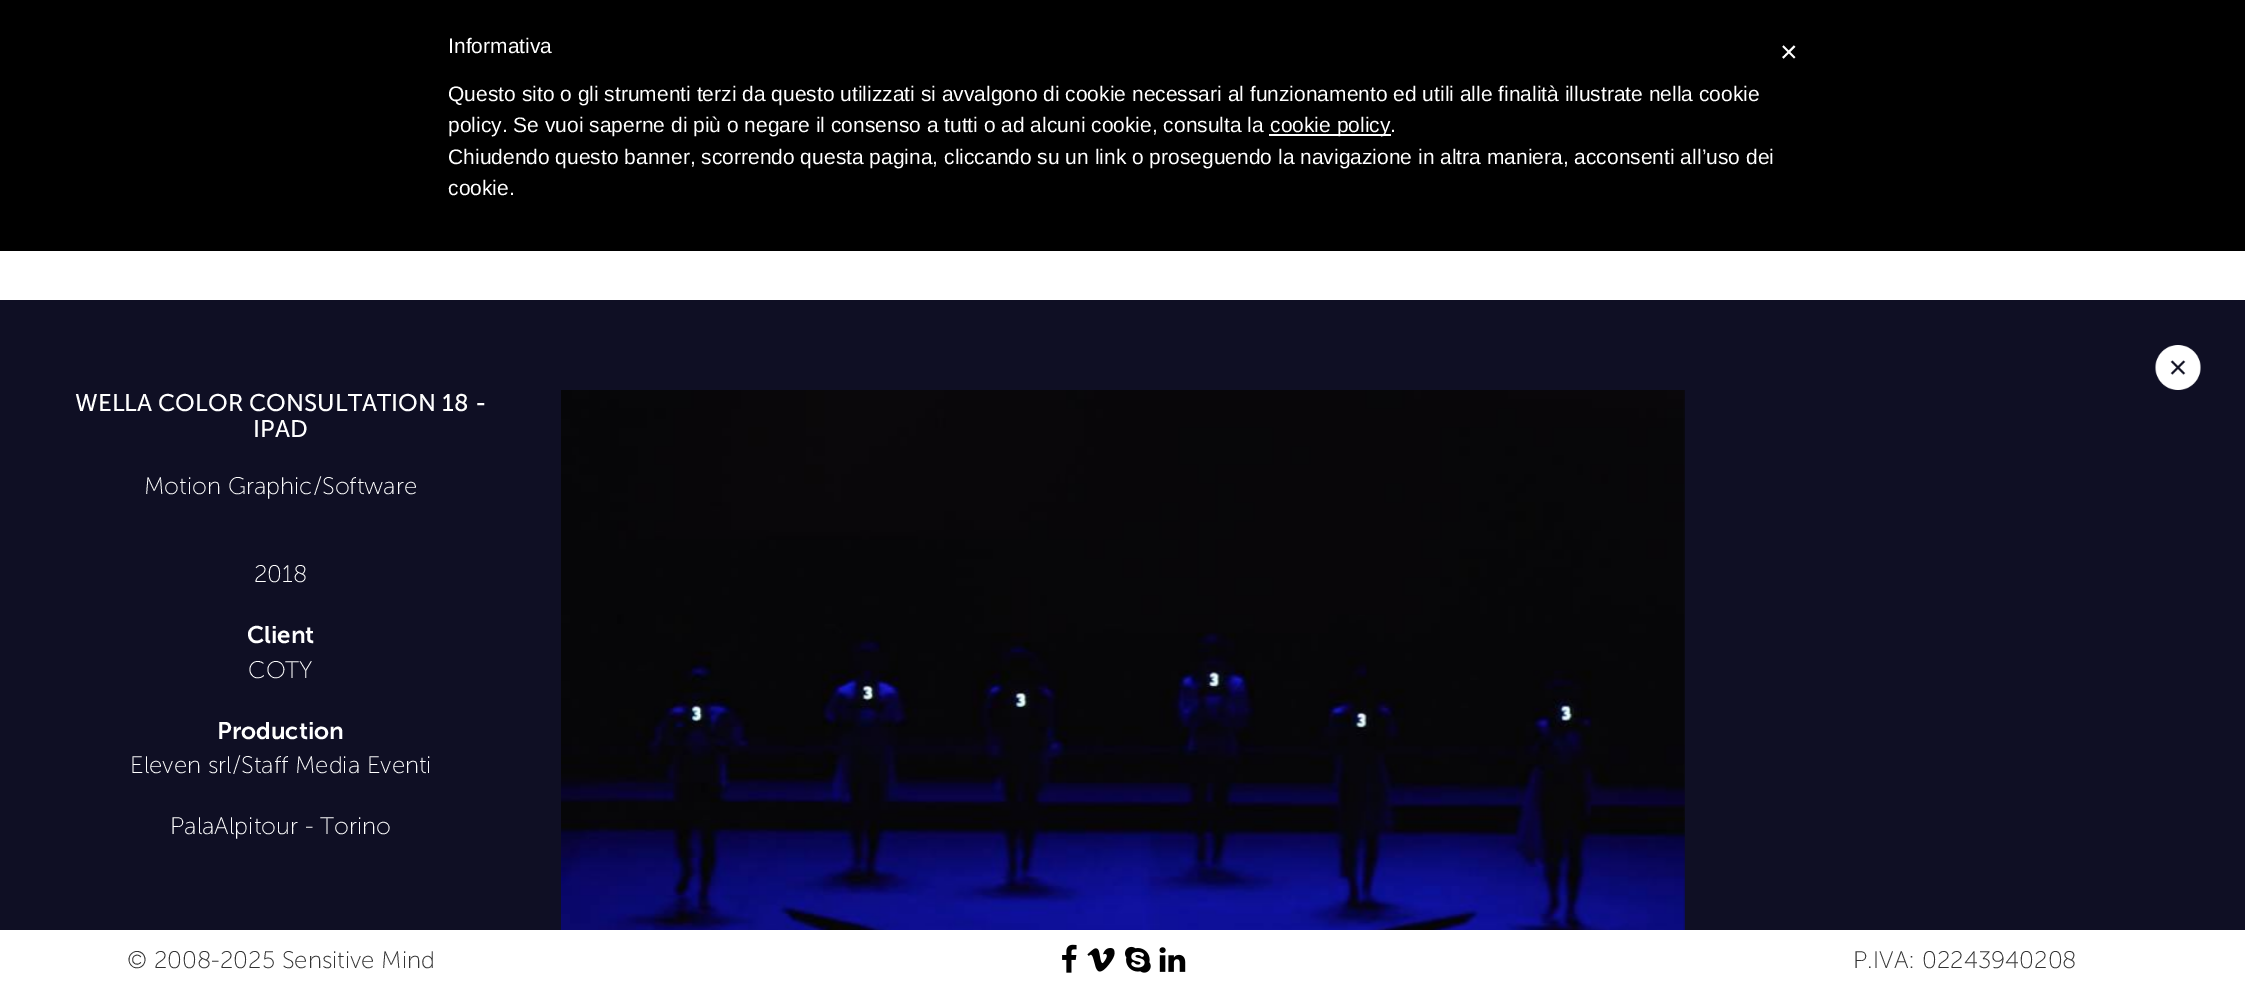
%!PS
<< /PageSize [2245 990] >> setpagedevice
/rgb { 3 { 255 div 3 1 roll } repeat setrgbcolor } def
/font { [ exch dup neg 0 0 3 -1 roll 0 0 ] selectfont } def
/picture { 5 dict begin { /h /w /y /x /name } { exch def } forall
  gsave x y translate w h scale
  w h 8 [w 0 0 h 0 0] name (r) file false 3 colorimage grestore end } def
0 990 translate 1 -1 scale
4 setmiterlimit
15 15 36 rgb
0 0 2245 990 rectfill
[
  [0 0 2245 251 0 0 0]
  [1269 134 122 2 255 255 255]
  [0 251 2245 49 255 255 255]
] { aload pop rgb rectfill } forall
(img/1.rgb) 2155 345 46 45 picture
(img/2.rgb) 561 390 1124 540 picture
0 930 2245 60 rectfill
(img/3.rgb) 1062 944 15 29 picture
(img/4.rgb) 1087 948 28 24 picture
(img/5.rgb) 1125 946 26 27 picture
(img/6.rgb) 1159 947 27 25 picture
/LiberationSans-Regular 21 font
[
  [(Informativa) 448 53]
  [(Questo sito o gli strumenti terzi da questo utilizzati si avvalgono di cookie necessari al funzionamento ed utili alle finalità illustrate nella cookie) 448 101]
  [(policy. Se vuoi saperne di più o negare il consenso a tutti o ad alcuni cookie, consulta la) 448 132]
  [(cookie policy.) 1270 132]
  [(Chiudendo questo banner, scorrendo questa pagina, cliccando su un link o proseguendo la navigazione in altra maniera, acconsenti all’uso dei) 448 164]
  [(cookie.) 448 195]
] { aload pop moveto show } forall
/LiberationSans-Regular 30 font
1780 62 moveto (×) show
/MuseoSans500-Regular 24 font
75 411 moveto (WELLA COLOR CONSULTATION 18 -) show
253 437 moveto (IPAD) show
/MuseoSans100-Light 24 font
144 494 moveto (Motion Graphic/Software) show
254 582 moveto (2018) show
/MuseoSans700-SemiBold 24 font
247 643 moveto (Client) show
/MuseoSans100-Light 24 font
248 678 moveto (COTY) show
/MuseoSans700-SemiBold 24 font
217 739 moveto (Production) show
/MuseoSans100-Light 24 font
130 773 moveto (Eleven srl/Staff Media Eventi) show
170 834 moveto (PalaAlpitour - Torino) show
51 51 51 rgb
127 968 moveto (© 2008-2025 Sensitive Mind) show
1853 968 moveto (P.IVA: 02243940208) show
showpage
